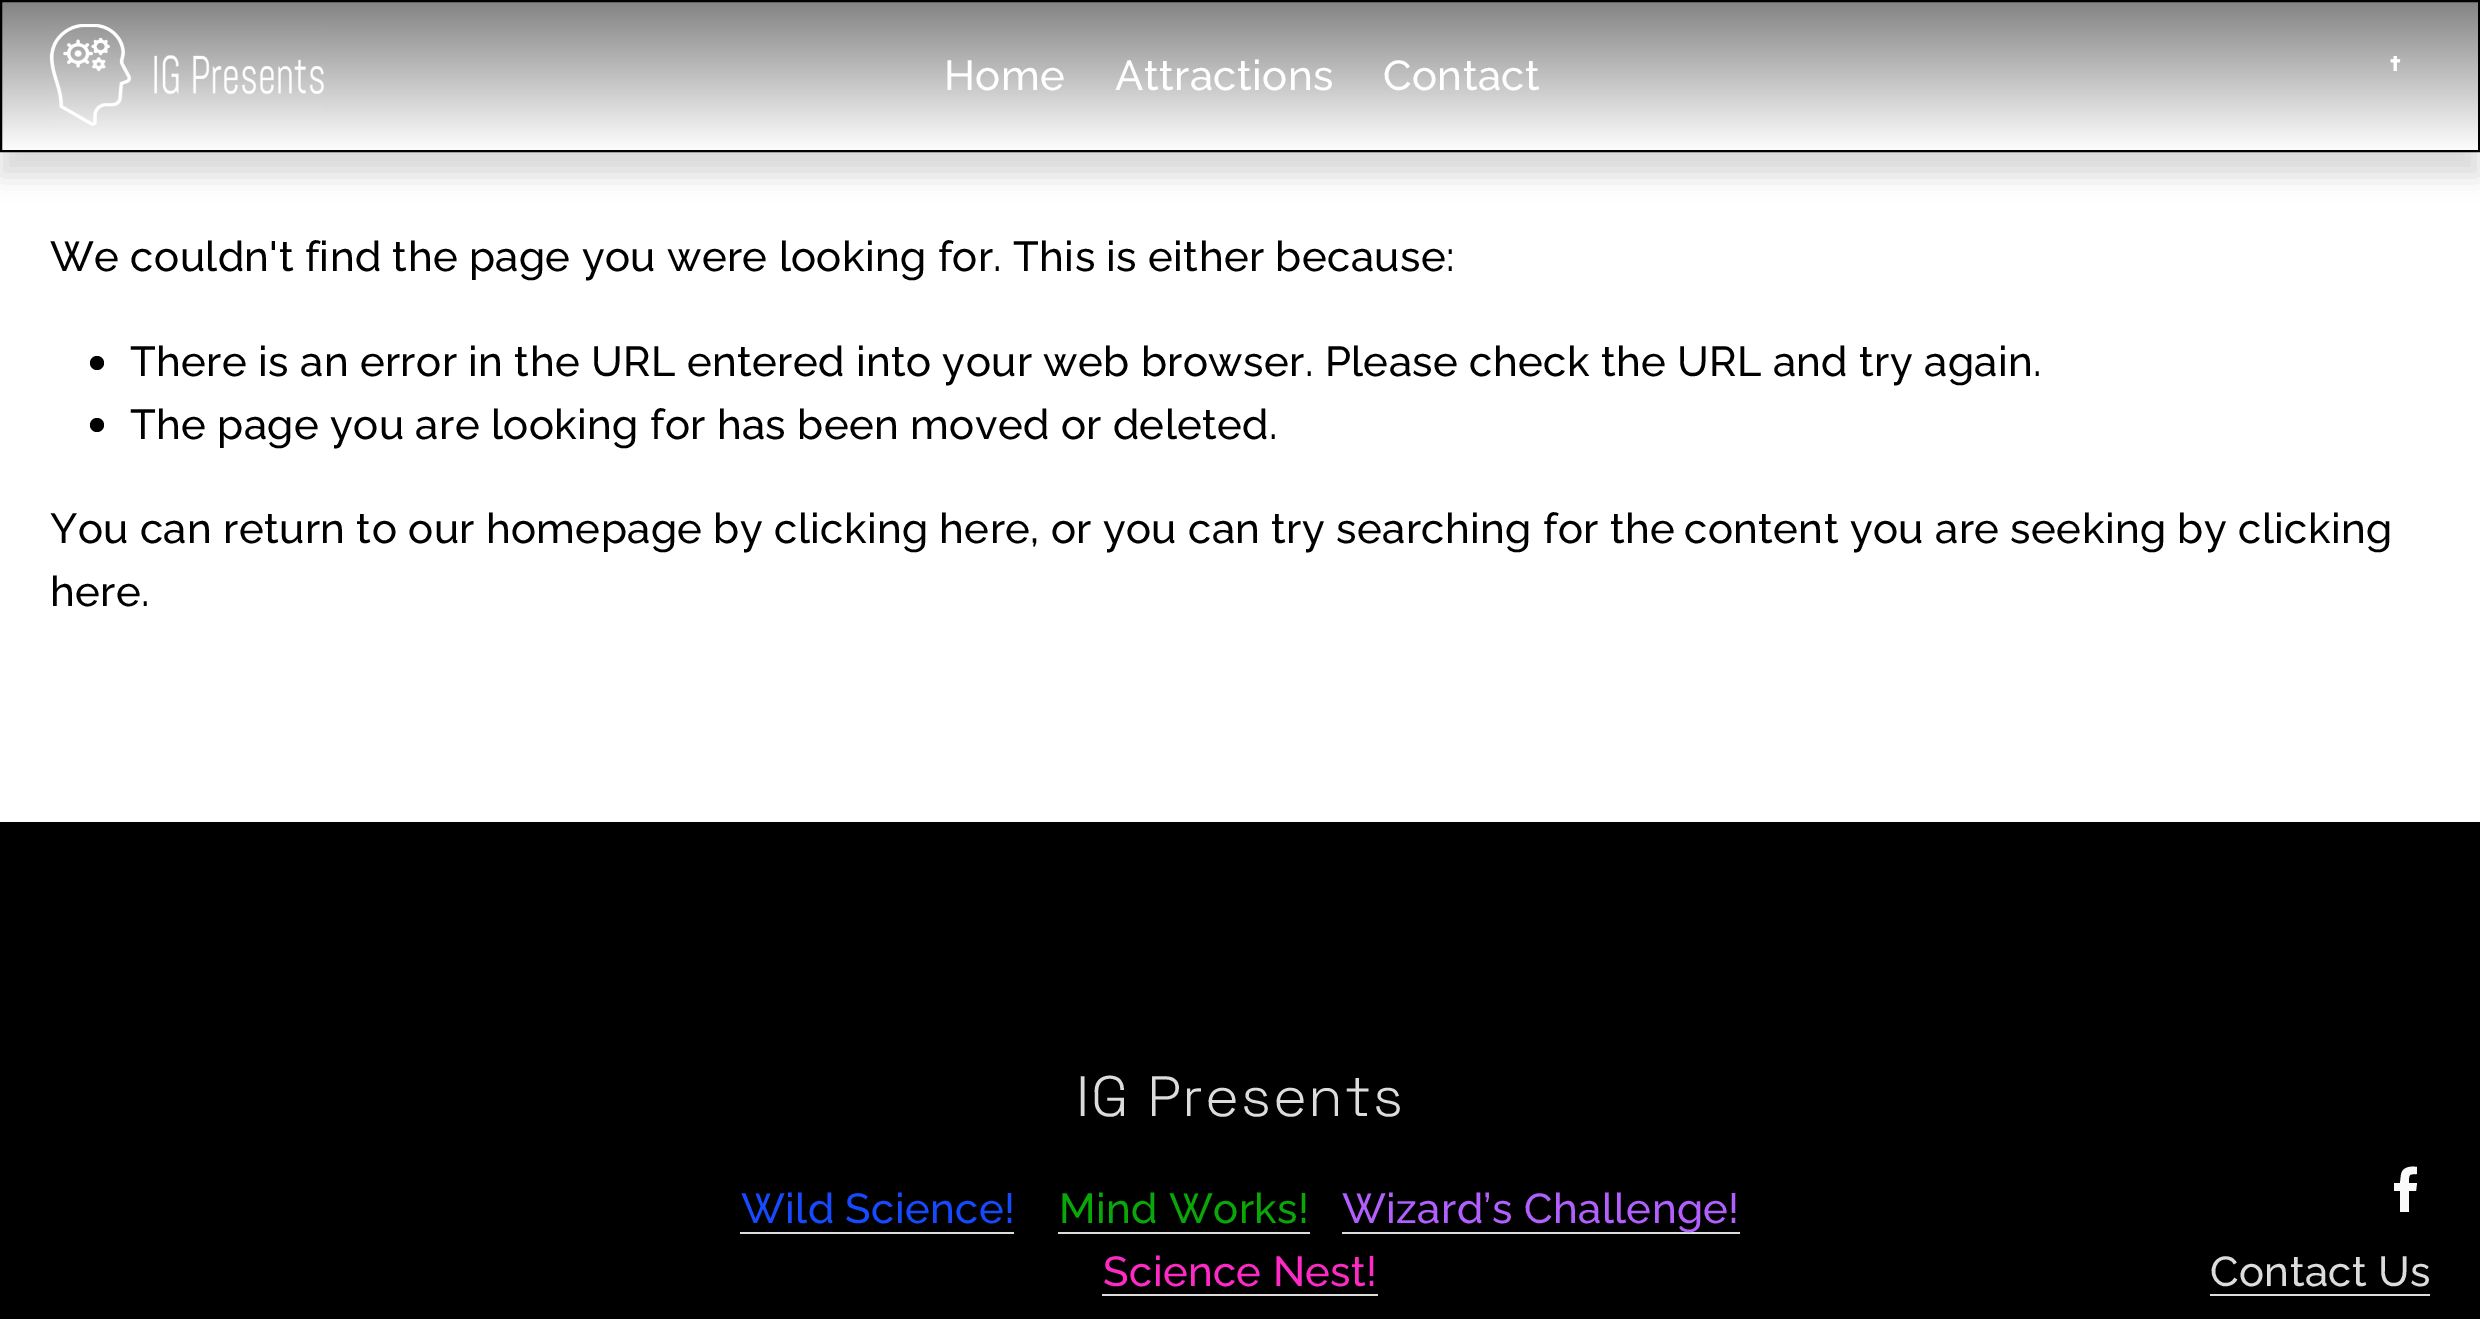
%!PS
<< /PageSize [2480 1319] /PageUsesTransparency true >> setpagedevice
/rgb { 3 { 255 div 3 1 roll } repeat setrgbcolor } def
/font { [ exch dup neg 0 0 3 -1 roll 0 0 ] selectfont } def
/alpha { dup .setfillconstantalpha .setstrokeconstantalpha } def
/circle { newpath 0 360 arc closepath } def
/roundrect { 5 dict begin { /r /h /w /y /x } { exch def } forall
  x r add y moveto x w add y 2 copy h add r arct x w add y h add x 1 index r arct
  x y h add x y r arct x y 2 copy exch w add exch r arct closepath end } def
/shadow { 12 dict begin { /a /b /q /h /w /y /x } { exch def } forall gsave /was 0 def
  9 -2 -9 { dup b mul 4 div /e exch def 1 sub .425 mul 2.718 exch exp 1 add a .99 .min exch div /now exch def
    1 1 now sub 1 was sub div sub alpha /was now def
    w h .min e 2 mul add 0 gt { x e sub y e sub w e 2 mul add h e 2 mul add
      q e add b .6 mul add w h .min 2 div e add .min 0 .max roundrect fill } if } for grestore end } def
/picture { 5 dict begin { /h /w /y /x /name } { exch def } forall
  gsave x y translate w h scale
  w h 8 [w 0 0 h 0 0] name (r) file false 3 colorimage grestore end } def
0 .pushpdf14devicefilter
0 1319 translate 1 -1 scale
4 setmiterlimit
255 255 255 rgb
0 0 2480 1319 rectfill
217 217 217 rgb
0 24 2480 152 0 12 1 shadow
gsave 2 2 moveto 2478 2 lineto 2478 150 lineto 2 150 lineto closepath clip newpath
<< /ShadingType 2 /ColorSpace /DeviceRGB /Coords [1240 0 1240 152] /Extend [true true] /Function << /FunctionType 2 /Domain [0 1] /C0 [0.51 0.51 0.51] /C1 [1 1 1] /N 1 >> >> shfill grestore
0 0 0 rgb
2 setlinewidth
1 1 2478 150 rectstroke
(img/1.rgb) 49 24 275 102 picture
(img/2.rgb) 2390 56 11 15 picture
97 363 7 circle fill
97 425 7 circle fill
[
  [0 822 2480 497 0 0 0]
  [740 1232 274 2 220 220 220]
  [1058 1232 252 2 220 220 220]
  [1342 1232 398 2 220 220 220]
  [1102 1294 276 2 220 220 220]
] { aload pop rgb rectfill } forall
250 250 250 rgb
2409 1212 moveto 2409 1191 lineto 2416 1191 lineto 2417 1183 lineto 2409 1183 lineto 2409 1175 2408 1174 2417 1174 curveto 2417 1167 lineto 2410 1166 2402 1167 2401 1175 curveto 2400 1183 lineto 2394 1183 lineto 2394 1191 lineto 2400 1191 lineto 2400 1212 lineto closepath fill
220 220 220 rgb
2210 1294 220 2 rectfill
/Raleway-Medium 41.85 font
255 255 255 rgb
944 90 moveto 0.42 0 (Home) ashow
1115 90 moveto 0.42 0 (Attractions) ashow
1383 90 moveto 0.42 0 (Contact) ashow
0 0 0 rgb
50 271 moveto 0.42 0 (We couldn't find the page you were looking for. This is either because:) ashow
130 376 moveto 0.42 0 (There is an error in the URL entered into your web browser. Please check the URL and try again.) ashow
130 439 moveto 0.42 0 (The page you are looking for has been moved or deleted.) ashow
50 543 moveto 0.42 0 (You can return to our homepage by clicking here, or you can try searching for the) ashow
1684 543 moveto 0.42 0 (content you are seeking by) ashow
2238 543 moveto 0.42 0 (clicking) ashow
50 606 moveto 0.42 0 (here.) ashow
/SpaceGrotesk-Light 56.75 font
220 220 220 rgb
1076 1116 moveto 1.75 0 (IG Presents) ashow
/Raleway-Medium 41.85 font
21 74 255 rgb
741 1223 moveto 0.42 0 (Wild Science!) ashow
9 167 8 rgb
1059 1223 moveto 0.42 0 (Mind Works!) ashow
177 96 253 rgb
1342 1223 moveto 0.42 0 (Wizard’s Challenge!) ashow
255 41 198 rgb
1103 1286 moveto 0.42 0 (Science Nest!) ashow
220 220 220 rgb
2210 1286 moveto 0.42 0 (Contact Us) ashow
.poppdf14devicefilter showpage
